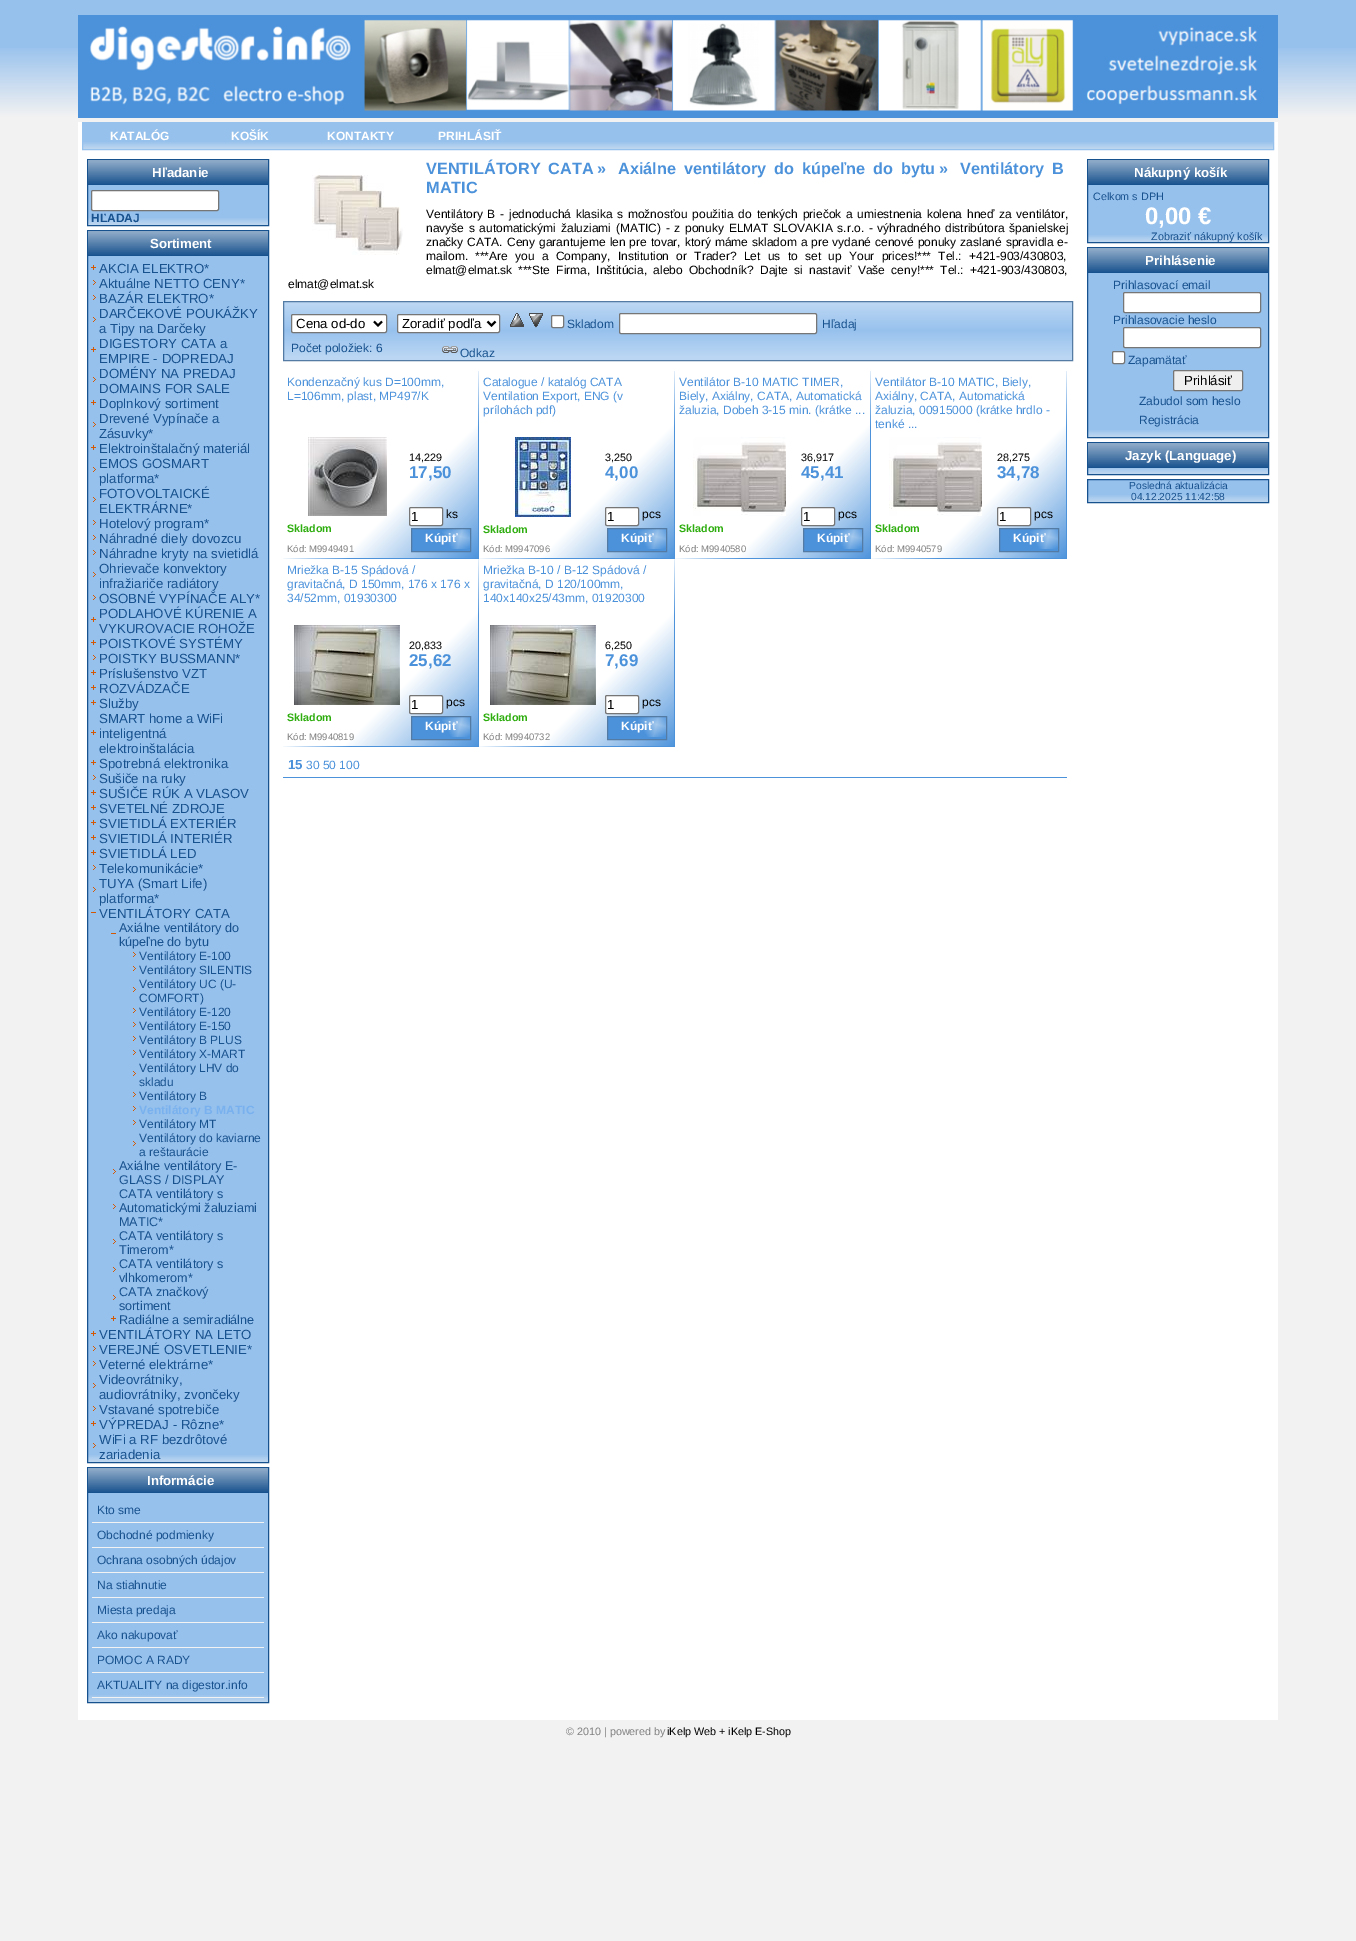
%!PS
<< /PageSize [1356 1941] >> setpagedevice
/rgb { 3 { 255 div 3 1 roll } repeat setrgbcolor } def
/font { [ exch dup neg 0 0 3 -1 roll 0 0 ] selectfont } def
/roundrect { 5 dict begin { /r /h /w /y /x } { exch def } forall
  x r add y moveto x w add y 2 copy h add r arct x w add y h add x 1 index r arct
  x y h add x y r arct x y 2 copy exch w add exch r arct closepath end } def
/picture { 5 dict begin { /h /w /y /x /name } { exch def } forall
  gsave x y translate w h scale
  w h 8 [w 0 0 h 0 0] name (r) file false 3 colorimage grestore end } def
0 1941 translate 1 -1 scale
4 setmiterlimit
242 242 242 rgb
0 0 1356 1941 rectfill
151 193 237 rgb
0 0 1356 117 rectfill
(img/1.rgb) 0 48 1356 70 picture
75 146 219 rgb
78 15 1200 103 rectfill
(img/2.rgb) 90 19 1168 92 picture
255 255 255 rgb
78 122 1200 1598 rectfill
151 193 237 rgb
83 123 1190 26 rectfill
(img/3.rgb) 83 142 1190 7 picture
82.5 122.5 1191 27 rectstroke
88 185 180 40 rectfill
(img/4.rgb) 88 218 180 7 picture
24 82 142 rgb
87.5 159.5 181 66 rectstroke
88 160 180 25 rectfill
(img/5.rgb) 88 160 180 24 picture
255 255 255 rgb
91.5 190.5 127 20 1.5 roundrect gsave fill grestore
118 118 118 rgb
stroke
151 193 237 rgb
88 256 180 1206 rectfill
(img/4.rgb) 88 1455 180 7 picture
24 82 142 rgb
87.5 230.5 181 1232 rectstroke
88 231 180 25 rectfill
(img/5.rgb) 88 231 180 24 picture
(img/6.rgb) 91 265 5 5 picture
(img/7.rgb) 93 280 3 5 picture
(img/7.rgb) 93 295 3 5 picture
(img/7.rgb) 93 317 3 5 picture
(img/6.rgb) 91 347 5 5 picture
(img/7.rgb) 93 377 3 5 picture
(img/6.rgb) 91 400 5 5 picture
(img/7.rgb) 93 422 3 5 picture
(img/6.rgb) 91 445 5 5 picture
(img/7.rgb) 93 467 3 5 picture
(img/7.rgb) 93 497 3 5 picture
(img/7.rgb) 93 520 3 5 picture
(img/7.rgb) 93 535 3 5 picture
(img/7.rgb) 93 550 3 5 picture
(img/7.rgb) 93 572 3 5 picture
(img/7.rgb) 93 595 3 5 picture
(img/6.rgb) 91 617 5 5 picture
(img/6.rgb) 91 640 5 5 picture
(img/7.rgb) 93 655 3 5 picture
(img/6.rgb) 91 670 5 5 picture
(img/6.rgb) 91 685 5 5 picture
(img/6.rgb) 91 700 5 5 picture
(img/6.rgb) 91 730 5 5 picture
(img/6.rgb) 91 760 5 5 picture
(img/7.rgb) 93 775 3 5 picture
(img/6.rgb) 91 790 5 5 picture
(img/6.rgb) 91 805 5 5 picture
(img/6.rgb) 91 820 5 5 picture
(img/6.rgb) 91 835 5 5 picture
(img/6.rgb) 91 850 5 5 picture
(img/7.rgb) 93 865 3 5 picture
(img/7.rgb) 93 887 3 5 picture
212 88 2 rgb
91 912 5 1 rectfill
111 933 5 1 rectfill
(img/7.rgb) 133 952 3 5 picture
(img/7.rgb) 133 966 3 5 picture
(img/7.rgb) 133 987 3 5 picture
(img/7.rgb) 133 1008 3 5 picture
(img/7.rgb) 133 1022 3 5 picture
(img/7.rgb) 133 1036 3 5 picture
(img/7.rgb) 133 1050 3 5 picture
(img/7.rgb) 133 1071 3 5 picture
(img/7.rgb) 133 1092 3 5 picture
(img/7.rgb) 133 1106 3 5 picture
(img/7.rgb) 133 1120 3 5 picture
(img/7.rgb) 133 1141 3 5 picture
(img/7.rgb) 113 1169 3 5 picture
(img/7.rgb) 113 1204 3 5 picture
(img/7.rgb) 113 1239 3 5 picture
(img/7.rgb) 113 1267 3 5 picture
(img/7.rgb) 113 1295 3 5 picture
(img/6.rgb) 111 1316 5 5 picture
(img/6.rgb) 91 1331 5 5 picture
(img/7.rgb) 93 1346 3 5 picture
(img/7.rgb) 93 1361 3 5 picture
(img/7.rgb) 93 1383 3 5 picture
(img/7.rgb) 93 1406 3 5 picture
(img/6.rgb) 91 1421 5 5 picture
(img/7.rgb) 93 1443 3 5 picture
151 193 237 rgb
88 1493 180 209 rectfill
(img/4.rgb) 88 1695 180 7 picture
24 82 142 rgb
87.5 1467.5 181 235 rectstroke
88 1468 180 25 rectfill
(img/5.rgb) 88 1468 180 24 picture
[
  [92 1522 172 1 242 242 242]
  [92 1547 172 1 242 242 242]
  [92 1572 172 1 242 242 242]
  [92 1597 172 1 242 242 242]
  [92 1622 172 1 242 242 242]
  [92 1647 172 1 242 242 242]
  [92 1672 172 1 242 242 242]
  [92 1697 172 1 242 242 242]
] { aload pop rgb rectfill } forall
(img/8.rgb) 312 175 91 80 picture
151 193 237 rgb
284 302 788 58 rectfill
(img/9.rgb) 284 302 788 58 picture
83 123 164 rgb
283.5 301.5 789 59 rectstroke
255 255 255 rgb
291.5 314.5 95 18 1.5 roundrect gsave fill grestore
118 118 118 rgb
stroke
0 0 0 rgb
2 setlinewidth
374 321.5 moveto 378 325.5 lineto 382 321.5 lineto stroke
255 255 255 rgb
397.5 314.5 102 18 1.5 roundrect gsave fill grestore
118 118 118 rgb
1 setlinewidth
stroke
0 0 0 rgb
2 setlinewidth
487.5 321.5 moveto 491.5 325.5 lineto 495.5 321.5 lineto stroke
(img/10.rgb) 510 313 14 14 picture
(img/11.rgb) 529 313 14 15 picture
255 255 255 rgb
551.5 315.5 12 12 1.5 roundrect gsave fill grestore
118 118 118 rgb
1 setlinewidth
stroke
255 255 255 rgb
619.5 313.5 197 20 1.5 roundrect gsave fill grestore
118 118 118 rgb
stroke
(img/12.rgb) 442 346 16 7 picture
75 146 219 rgb
283 371 784 188 rectfill
(img/13.rgb) 283 371 196 188 picture
(img/14.rgb) 308 437 79 79 picture
255 255 255 rgb
409.5 507.5 33 18 1.5 roundrect gsave fill grestore
118 118 118 rgb
stroke
75 146 219 rgb
412 529 58 22 rectfill
(img/15.rgb) 442 529 28 20 picture
83 123 164 rgb
411.5 528.5 59 23 rectstroke
(img/13.rgb) 479 371 196 188 picture
(img/16.rgb) 515 437 56 80 picture
255 255 255 rgb
605.5 507.5 33 18 1.5 roundrect gsave fill grestore
118 118 118 rgb
stroke
75 146 219 rgb
608 529 58 22 rectfill
(img/15.rgb) 638 529 28 20 picture
83 123 164 rgb
607.5 528.5 59 23 rectstroke
(img/13.rgb) 675 371 196 188 picture
(img/17.rgb) 693 437 93 79 picture
255 255 255 rgb
801.5 507.5 33 18 1.5 roundrect gsave fill grestore
118 118 118 rgb
stroke
75 146 219 rgb
804 529 58 22 rectfill
(img/15.rgb) 834 529 28 20 picture
83 123 164 rgb
803.5 528.5 59 23 rectstroke
(img/13.rgb) 871 371 196 188 picture
(img/17.rgb) 889 437 93 79 picture
255 255 255 rgb
997.5 507.5 33 18 1.5 roundrect gsave fill grestore
118 118 118 rgb
stroke
75 146 219 rgb
1000 529 58 22 rectfill
(img/15.rgb) 1030 529 28 20 picture
83 123 164 rgb
999.5 528.5 59 23 rectstroke
75 146 219 rgb
283 559 392 188 rectfill
(img/13.rgb) 283 559 196 188 picture
(img/18.rgb) 294 625 106 80 picture
255 255 255 rgb
409.5 695.5 33 18 1.5 roundrect gsave fill grestore
118 118 118 rgb
stroke
75 146 219 rgb
412 717 58 22 rectfill
(img/15.rgb) 442 717 28 20 picture
83 123 164 rgb
411.5 716.5 59 23 rectstroke
(img/13.rgb) 479 559 196 188 picture
(img/18.rgb) 490 625 106 80 picture
255 255 255 rgb
605.5 695.5 33 18 1.5 roundrect gsave fill grestore
118 118 118 rgb
stroke
75 146 219 rgb
608 717 58 22 rectfill
(img/15.rgb) 638 717 28 20 picture
83 123 164 rgb
607.5 716.5 59 23 rectstroke
75 146 219 rgb
283 777 784 1 rectfill
151 193 237 rgb
1088 185 180 57 rectfill
(img/4.rgb) 1088 235 180 7 picture
24 82 142 rgb
1087.5 159.5 181 83 rectstroke
1088 160 180 25 rectfill
(img/5.rgb) 1088 160 180 24 picture
151 193 237 rgb
1088 273 180 164 rectfill
(img/4.rgb) 1088 430 180 7 picture
24 82 142 rgb
1087.5 247.5 181 190 rectstroke
1088 248 180 25 rectfill
(img/5.rgb) 1088 248 180 24 picture
255 255 255 rgb
1123.5 292.5 137 20 1.5 roundrect gsave fill grestore
118 118 118 rgb
stroke
255 255 255 rgb
1123.5 327.5 137 20 1.5 roundrect gsave fill grestore
118 118 118 rgb
stroke
255 255 255 rgb
1112.5 351.5 12 12 1.5 roundrect gsave fill grestore
118 118 118 rgb
stroke
239 239 239 rgb
1173.5 370.5 69 20 1.5 roundrect gsave fill grestore
118 118 118 rgb
stroke
151 193 237 rgb
1088 468 180 6 rectfill
(img/19.rgb) 1088 468 180 6 picture
24 82 142 rgb
1087.5 442.5 181 32 rectstroke
1088 443 180 25 rectfill
(img/5.rgb) 1088 443 180 24 picture
151 193 237 rgb
1088 480 180 22 rectfill
(img/4.rgb) 1088 495 180 7 picture
24 82 142 rgb
1087.5 479.5 181 23 rectstroke
/LiberationSans-Bold 12 font
255 255 255 rgb
[
  [(KATALÓG) 110 140]
  [(KOŠÍK) 231 140]
  [(KONTAKTY) 327 140]
  [(PRIHLÁSIŤ) 438 140]
] { aload pop moveto show } forall
/LiberationSans-Bold 13.25 font
152 177 moveto (Hľadanie) show
/LiberationSans-Bold 12 font
24 82 142 rgb
91 222 moveto (HĽADAJ) show
/LiberationSans-Bold 13.25 font
255 255 255 rgb
150 248 moveto (Sortiment) show
/LiberationSans-Regular 13.25 font
24 82 142 rgb
[
  [(AKCIA ELEKTRO*) 99 273]
  [(Aktuálne NETTO CENY*) 99 288]
  [(BAZÁR ELEKTRO*) 99 303]
  [(DARČEKOVÉ POUKÁŽKY) 99 318]
  [(a Tipy na Darčeky) 99 333]
  [(DIGESTORY CATA a) 99 348]
  [(EMPIRE - DOPREDAJ) 99 363]
  [(DOMÉNY NA PREDAJ) 99 378]
  [(DOMAINS FOR SALE) 99 393]
  [(Doplnkový sortiment) 99 408]
  [(Drevené Vypínače a) 99 423]
  [(Zásuvky*) 99 438]
  [(Elektroinštalačný materiál) 99 453]
  [(EMOS GOSMART) 99 468]
  [(platforma*) 99 483]
  [(FOTOVOLTAICKÉ) 99 498]
  [(ELEKTRÁRNE*) 99 513]
  [(Hotelový program*) 99 528]
  [(Náhradné diely dovozcu) 99 543]
  [(Náhradne kryty na svietidlá) 99 558]
  [(Ohrievače konvektory) 99 573]
  [(infražiariče radiátory) 99 588]
  [(OSOBNÉ VYPÍNAČE ALY*) 99 603]
  [(PODLAHOVÉ KÚRENIE A) 99 618]
  [(VYKUROVACIE ROHOŽE) 99 633]
  [(POISTKOVÉ SYSTÉMY) 99 648]
  [(POISTKY BUSSMANN*) 99 663]
  [(Príslušenstvo VZT) 99 678]
  [(ROZVÁDZAČE) 99 693]
  [(Služby) 99 708]
  [(SMART home a WiFi) 99 723]
  [(inteligentná) 99 738]
  [(elektroinštalácia) 99 753]
  [(Spotrebná elektronika) 99 768]
  [(Sušiče na ruky) 99 783]
  [(SUŠIČE RÚK A VLASOV) 99 798]
  [(SVETELNÉ ZDROJE) 99 813]
  [(SVIETIDLÁ EXTERIÉR) 99 828]
  [(SVIETIDLÁ INTERIÉR) 99 843]
  [(SVIETIDLÁ LED) 99 858]
  [(Telekomunikácie*) 99 873]
  [(TUYA \(Smart Life\)) 99 888]
  [(platforma*) 99 903]
  [(VENTILÁTORY CATA) 99 918]
] { aload pop moveto show } forall
/LiberationSans-Regular 12.6 font
119 932 moveto (Axiálne ventilátory do) show
119 946 moveto (kúpeľne do bytu) show
/LiberationSans-Regular 12 font
[
  [(Ventilátory E-100) 139 960]
  [(Ventilátory SILENTIS) 139 974]
  [(Ventilátory UC \(U-) 139 988]
  [(COMFORT\)) 139 1002]
  [(Ventilátory E-120) 139 1016]
  [(Ventilátory E-150) 139 1030]
  [(Ventilátory B PLUS) 139 1044]
  [(Ventilátory X-MART) 139 1058]
  [(Ventilátory LHV do) 139 1072]
  [(skladu) 139 1086]
  [(Ventilátory B) 139 1100]
] { aload pop moveto show } forall
/LiberationSans-Bold 12 font
120 177 237 rgb
139 1114 moveto (Ventilátory B MATIC) show
/LiberationSans-Regular 12 font
24 82 142 rgb
[
  [(Ventilátory MT) 139 1128]
  [(Ventilátory do kaviarne) 139 1142]
  [(a reštaurácie) 139 1156]
] { aload pop moveto show } forall
/LiberationSans-Regular 12.6 font
[
  [(Axiálne ventilátory E-) 119 1170]
  [(GLASS / DISPLAY) 119 1184]
  [(CATA ventilátory s) 119 1198]
  [(Automatickými žaluziami) 119 1212]
  [(MATIC*) 119 1226]
  [(CATA ventilátory s) 119 1240]
  [(Timerom*) 119 1254]
  [(CATA ventilátory s) 119 1268]
  [(vlhkomerom*) 119 1282]
  [(CATA značkový) 119 1296]
  [(sortiment) 119 1310]
  [(Radiálne a semiradiálne) 119 1324]
] { aload pop moveto show } forall
/LiberationSans-Regular 13.25 font
[
  [(VENTILÁTORY NA LETO) 99 1339]
  [(VEREJNÉ OSVETLENIE*) 99 1354]
  [(Veterné elektrárne*) 99 1369]
  [(Videovrátniky,) 99 1384]
  [(audiovrátniky, zvončeky) 99 1399]
  [(Vstavané spotrebiče) 99 1414]
  [(VÝPREDAJ - Rôzne*) 99 1429]
  [(WiFi a RF bezdrôtové) 99 1444]
  [(zariadenia) 99 1459]
] { aload pop moveto show } forall
/LiberationSans-Bold 13.25 font
255 255 255 rgb
147 1485 moveto (Informácie) show
/LiberationSans-Regular 12 font
24 82 142 rgb
[
  [(Kto sme) 97 1514]
  [(Obchodné podmienky) 97 1539]
  [(Ochrana osobných údajov) 97 1564]
  [(Na stiahnutie) 97 1589]
  [(Miesta predaja) 97 1614]
  [(Ako nakupovať) 97 1639]
  [(POMOC A RADY) 97 1664]
  [(AKTUALITY na digestor.info) 97 1689]
] { aload pop moveto show } forall
/LiberationSans-Bold 16.25 font
75 146 219 rgb
426 174 moveto 3 0 32 (VENTILÁTORY CATA) widthshow
597 174 moveto (») show
618 174 moveto 3.5 0 32 (Axiálne ventilátory do kúpeľne do bytu) widthshow
939 174 moveto (») show
960 174 moveto 3.5 0 32 (Ventilátory B) widthshow
426 193 moveto (MATIC) show
/LiberationSans-Regular 12 font
0 0 0 rgb
426 218 moveto 1.4 0 32 (Ventilátory B - jednoduchá klasika s možnosťou použitia do tenkých priečok a umiestnenia kolena hneď za ventilátor,) widthshow
426 232 moveto 1.4 0 32 (navyše s automatickými žaluziami \(MATIC\) - z ponuky ELMAT SLOVAKIA s.r.o. - výhradného distribútora španielskej) widthshow
426 246 moveto 0.6 0 32 (značky CATA.) widthshow
507 246 moveto 0.6 0 32 (Ceny garantujeme len pre tovar, ktorý máme skladom a pre vydané cenové ponuky zaslané spravidla e-) widthshow
426 260 moveto (mailom.) show
475 260 moveto 4 0 32 (***Are you a Company, Institution or Trader? Let us to set up Your prices!*** Tel.: +421-903/430803,) widthshow
426 274 moveto (elmat@elmat.sk) show
518 274 moveto 2.9 0 32 (***Ste Firma, Inštitúcia, alebo Obchodník? Dajte si nastaviť Vaše ceny!*** Tel.: +421-903/430803,) widthshow
288 288 moveto (elmat@elmat.sk) show
/LiberationSans-Regular 13.25 font
296 328 moveto (Cena od-do) show
402 328 moveto (Zoradiť podľa) show
/LiberationSans-Regular 12 font
24 82 142 rgb
[
  [(Skladom) 567 328]
  [(Hľadaj) 822 328]
  [(Počet položiek: 6) 291 352]
  [(Odkaz) 460 357]
] { aload pop moveto show } forall
75 146 219 rgb
287 386 moveto (Kondenzačný kus D=100mm,) show
287 400 moveto (L=106mm, plast, MP497/K) show
/LiberationSans-Bold 10.75 font
46 173 14 rgb
287 532 moveto (Skladom) show
/LiberationSans-Regular 10.75 font
0 0 0 rgb
409 461 moveto (14,229) show
/LiberationSans-Bold 17 font
75 146 219 rgb
409 478 moveto (17,50) show
/LiberationSans-Regular 13.25 font
0 0 0 rgb
411 521 moveto (1) show
/LiberationSans-Regular 12 font
446 518 moveto (ks) show
/LiberationSans-Bold 12 font
255 255 255 rgb
425 542 moveto (Kúpiť) show
/LiberationSans-Regular 9.5 font
128 128 128 rgb
287 552 moveto (Kód: M9949491) show
/LiberationSans-Regular 12 font
75 146 219 rgb
[
  [(Catalogue / katalóg CATA) 483 386]
  [(Ventilation Export, ENG \(v) 483 400]
  [(prílohách pdf\)) 483 414]
] { aload pop moveto show } forall
/LiberationSans-Bold 10.75 font
46 173 14 rgb
483 533 moveto (Skladom) show
/LiberationSans-Regular 10.75 font
0 0 0 rgb
605 461 moveto (3,250) show
/LiberationSans-Bold 17 font
75 146 219 rgb
605 478 moveto (4,00) show
/LiberationSans-Regular 13.25 font
0 0 0 rgb
607 521 moveto (1) show
/LiberationSans-Regular 12 font
642 518 moveto (pcs) show
/LiberationSans-Bold 12 font
255 255 255 rgb
621 542 moveto (Kúpiť) show
/LiberationSans-Regular 9.5 font
128 128 128 rgb
483 552 moveto (Kód: M9947096) show
/LiberationSans-Regular 12 font
75 146 219 rgb
[
  [(Ventilátor B-10 MATIC TIMER,) 679 386]
  [(Biely, Axiálny, CATA, Automatická) 679 400]
  [(žaluzia, Dobeh 3-15 min. \(krátke ...) 679 414]
] { aload pop moveto show } forall
/LiberationSans-Bold 10.75 font
46 173 14 rgb
679 532 moveto (Skladom) show
/LiberationSans-Regular 10.75 font
0 0 0 rgb
801 461 moveto (36,917) show
/LiberationSans-Bold 17 font
75 146 219 rgb
801 478 moveto (45,41) show
/LiberationSans-Regular 13.25 font
0 0 0 rgb
803 521 moveto (1) show
/LiberationSans-Regular 12 font
838 518 moveto (pcs) show
/LiberationSans-Bold 12 font
255 255 255 rgb
817 542 moveto (Kúpiť) show
/LiberationSans-Regular 9.5 font
128 128 128 rgb
679 552 moveto (Kód: M9940580) show
/LiberationSans-Regular 12 font
75 146 219 rgb
[
  [(Ventilátor B-10 MATIC, Biely,) 875 386]
  [(Axiálny, CATA, Automatická) 875 400]
  [(žaluzia, 00915000 \(krátke hrdlo -) 875 414]
  [(tenké ...) 875 428]
] { aload pop moveto show } forall
/LiberationSans-Bold 10.75 font
46 173 14 rgb
875 532 moveto (Skladom) show
/LiberationSans-Regular 10.75 font
0 0 0 rgb
997 461 moveto (28,275) show
/LiberationSans-Bold 17 font
75 146 219 rgb
997 478 moveto (34,78) show
/LiberationSans-Regular 13.25 font
0 0 0 rgb
999 521 moveto (1) show
/LiberationSans-Regular 12 font
1034 518 moveto (pcs) show
/LiberationSans-Bold 12 font
255 255 255 rgb
1013 542 moveto (Kúpiť) show
/LiberationSans-Regular 9.5 font
128 128 128 rgb
875 552 moveto (Kód: M9940579) show
/LiberationSans-Regular 12 font
75 146 219 rgb
[
  [(Mriežka B-15 Spádová /) 287 574]
  [(gravitačná, D 150mm, 176 x 176 x) 287 588]
  [(34/52mm, 01930300) 287 602]
] { aload pop moveto show } forall
/LiberationSans-Bold 10.75 font
46 173 14 rgb
287 721 moveto (Skladom) show
/LiberationSans-Regular 10.75 font
0 0 0 rgb
409 649 moveto (20,833) show
/LiberationSans-Bold 17 font
75 146 219 rgb
409 666 moveto (25,62) show
/LiberationSans-Regular 13.25 font
0 0 0 rgb
411 709 moveto (1) show
/LiberationSans-Regular 12 font
446 706 moveto (pcs) show
/LiberationSans-Bold 12 font
255 255 255 rgb
425 730 moveto (Kúpiť) show
/LiberationSans-Regular 9.5 font
128 128 128 rgb
287 740 moveto (Kód: M9940819) show
/LiberationSans-Regular 12 font
75 146 219 rgb
[
  [(Mriežka B-10 / B-12 Spádová /) 483 574]
  [(gravitačná, D 120/100mm,) 483 588]
  [(140x140x25/43mm, 01920300) 483 602]
] { aload pop moveto show } forall
/LiberationSans-Bold 10.75 font
46 173 14 rgb
483 721 moveto (Skladom) show
/LiberationSans-Regular 10.75 font
0 0 0 rgb
605 649 moveto (6,250) show
/LiberationSans-Bold 17 font
75 146 219 rgb
605 666 moveto (7,69) show
/LiberationSans-Regular 13.25 font
0 0 0 rgb
607 709 moveto (1) show
/LiberationSans-Regular 12 font
642 706 moveto (pcs) show
/LiberationSans-Bold 12 font
255 255 255 rgb
621 730 moveto (Kúpiť) show
/LiberationSans-Regular 9.5 font
128 128 128 rgb
483 740 moveto (Kód: M9940732) show
/LiberationSans-Bold 13.25 font
75 146 219 rgb
288 769 moveto (15) show
/LiberationSans-Regular 12 font
306 769 moveto (30 50 100) show
/LiberationSans-Bold 13.25 font
255 255 255 rgb
1134 177 moveto (Nákupný košík) show
/LiberationSans-Regular 10.75 font
24 82 142 rgb
1093 200 moveto (Celkom s DPH) show
/LiberationSans-Bold 24 font
255 255 255 rgb
1145 224 moveto (0,00 €) show
/LiberationSans-Regular 10.75 font
24 82 142 rgb
1151 240 moveto (Zobraziť nákupný košík) show
/LiberationSans-Bold 13.25 font
255 255 255 rgb
1145 265 moveto (Prihlásenie) show
/LiberationSans-Regular 12 font
24 82 142 rgb
[
  [(Prihlasovací email) 1113 289]
  [(Prihlasovacie heslo) 1113 324]
  [(Zapamätať) 1128 364]
] { aload pop moveto show } forall
/LiberationSans-Regular 13.25 font
0 0 0 rgb
1184 385 moveto (Prihlásiť) show
/LiberationSans-Regular 12 font
24 82 142 rgb
1139 405 moveto (Zabudol som heslo) show
1139 424 moveto (Registrácia) show
/LiberationSans-Bold 13.25 font
255 255 255 rgb
1125 460 moveto (Jazyk \(Language\)) show
/LiberationSans-Regular 10.25 font
24 82 142 rgb
1129 489 moveto (Posledná aktualizácia) show
1131 500 moveto (04.12.2025 11:42:58) show
/LiberationSans-Regular 10.75 font
128 128 128 rgb
566 1735 moveto (© 2010 | powered by) show
0 0 0 rgb
667 1735 moveto (iKelp Web + iKelp E-Shop) show
showpage
